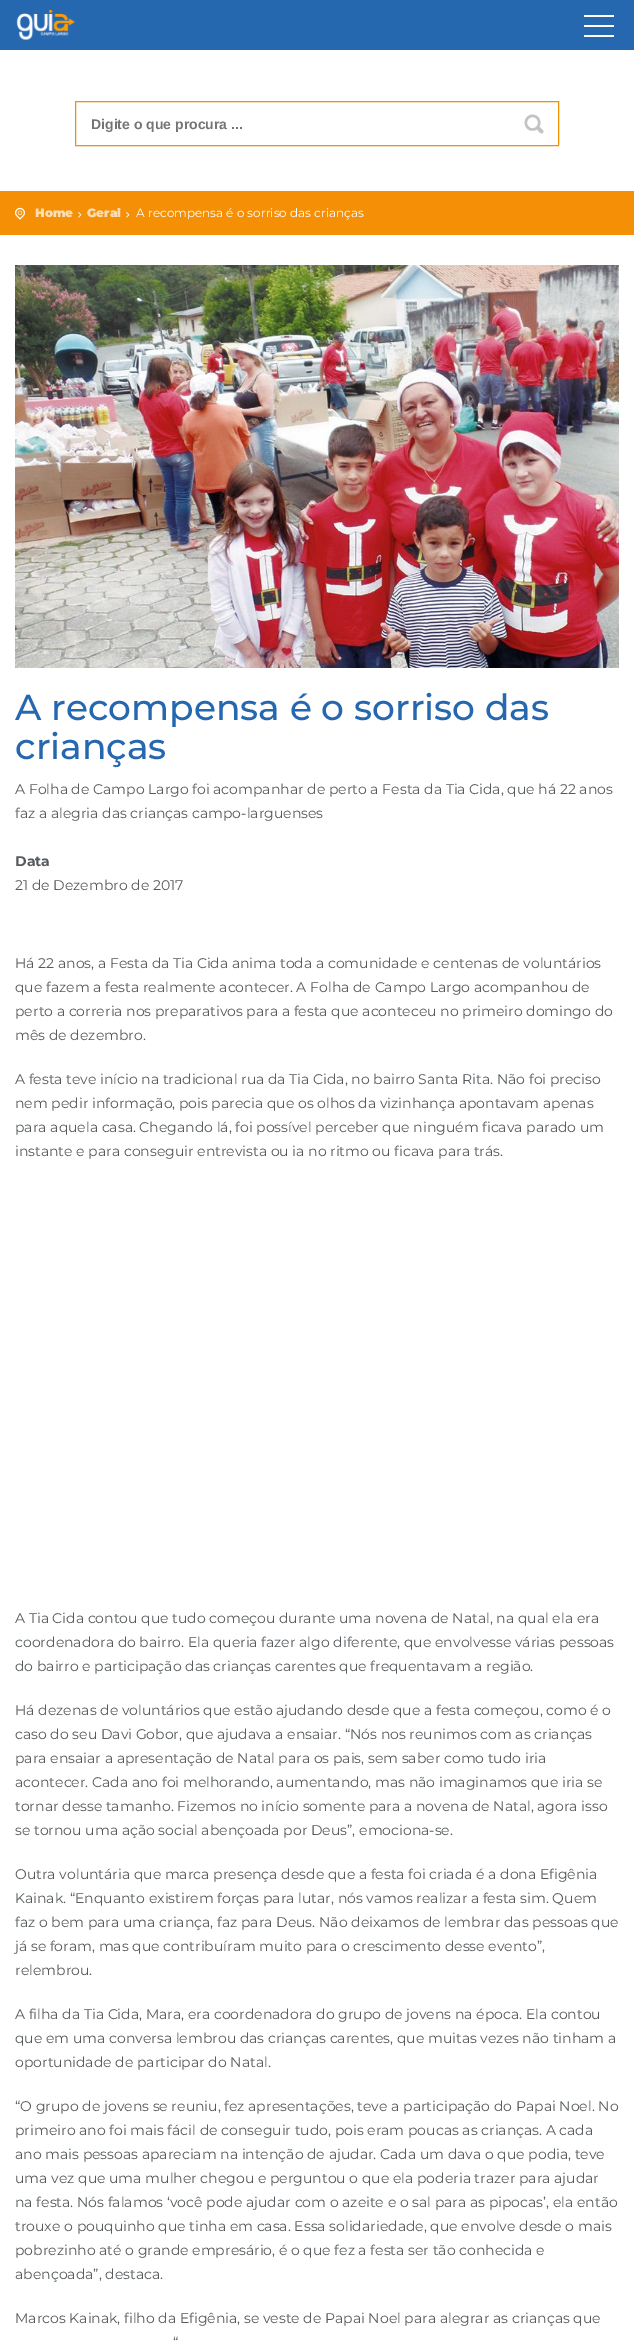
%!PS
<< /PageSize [634 2343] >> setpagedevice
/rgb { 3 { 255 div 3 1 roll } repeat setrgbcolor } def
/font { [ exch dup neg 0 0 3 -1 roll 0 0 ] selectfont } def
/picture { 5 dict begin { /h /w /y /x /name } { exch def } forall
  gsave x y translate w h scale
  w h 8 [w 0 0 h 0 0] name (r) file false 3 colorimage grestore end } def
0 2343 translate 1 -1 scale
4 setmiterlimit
255 255 255 rgb
0 0 634 2343 rectfill
38 104 176 rgb
0 0 634 50 rectfill
(img/1.rgb) 16 10 60 30 picture
[
  [584 25 30 2 255 255 255]
  [584 15 30 2 255 255 255]
  [584 35 30 2 255 255 255]
] { aload pop rgb rectfill } forall
242 145 1 rgb
75.5 101.5 483 44 rectstroke
(img/2.rgb) 524 114 20 20 picture
244 143 6 rgb
0 191 634 44 rectfill
(img/3.rgb) 15 207 10 13 picture
(img/4.rgb) 78 212 4 6 picture
(img/4.rgb) 126 212 4 6 picture
(img/5.rgb) 15 265 604 403 picture
/LiberationSans-Bold 14 font
117 117 117 rgb
91 129 moveto (Digite o que procura ...) show
/Montserrat-Black 12 font
252 221 180 rgb
35 217 moveto (Home) show
87 217 moveto (Geral) show
/Montserrat-Regular 12 font
255 255 255 rgb
136 217 moveto (A recompensa é o sorriso das crianças) show
/Montserrat-Medium 36 font
38 104 176 rgb
15 720 moveto (A recompensa é o sorriso das) show
15 759 moveto (crianças) show
/Montserrat-Regular 14 font
86 90 92 rgb
15 794 moveto (A Folha de Campo Largo foi acompanhar de perto a Festa da Tia Cida, que há 22 anos) show
15 818 moveto (faz a alegria das crianças campo-larguenses) show
/Montserrat-Bold 14 font
15 866 moveto (Data) show
/Montserrat-Regular 14 font
[
  [(21 de Dezembro de 2017) 15 890]
  [(Há 22 anos, a Festa da Tia Cida anima toda a comunidade e centenas de voluntários) 15 968]
  [(que fazem a festa realmente acontecer. A Folha de Campo Largo acompanhou de) 15 992]
  [(perto a correria nos preparativos para a festa que aconteceu no primeiro domingo do) 15 1016]
  [(mês de dezembro.) 15 1040]
  [(A festa teve início na tradicional rua da Tia Cida, no bairro Santa Rita. Não foi preciso) 15 1084]
  [(nem pedir informação, pois parecia que os olhos da vizinhança apontavam apenas) 15 1108]
  [(para aquela casa. Chegando lá, foi possível perceber que ninguém ficava parado um) 15 1132]
  [(instante e para conseguir entrevista ou ia no ritmo ou ficava para trás.) 15 1156]
  [(A Tia Cida contou que tudo começou durante uma novena de Natal, na qual ela era) 15 1623]
  [(coordenadora do bairro. Ela queria fazer algo diferente, que envolvesse várias pessoas) 15 1647]
  [(do bairro e participação das crianças carentes que frequentavam a região.) 15 1671]
  [(Há dezenas de voluntários que estão ajudando desde que a festa começou, como é o) 15 1715]
  [(caso do seu Davi Gobor, que ajudava a ensaiar. “Nós nos reunimos com as crianças) 15 1739]
  [(para ensaiar a apresentação de Natal para os pais, sem saber como tudo iria) 15 1763]
  [(acontecer. Cada ano foi melhorando, aumentando, mas não imaginamos que iria se) 15 1787]
  [(tornar desse tamanho. Fizemos no início somente para a novena de Natal, agora isso) 15 1811]
  [(se tornou uma ação social abençoada por Deus”, emociona-se.) 15 1835]
  [(Outra voluntária que marca presença desde que a festa foi criada é a dona Efigênia) 15 1879]
  [(Kainak. “Enquanto existirem forças para lutar, nós vamos realizar a festa sim. Quem) 15 1903]
  [(faz o bem para uma criança, faz para Deus. Não deixamos de lembrar das pessoas que) 15 1927]
  [(já se foram, mas que contribuíram muito para o crescimento desse evento”,) 15 1951]
  [(relembrou.) 15 1975]
  [(A filha da Tia Cida, Mara, era coordenadora do grupo de jovens na época. Ela contou) 15 2019]
  [(que em uma conversa lembrou das crianças carentes, que muitas vezes não tinham a) 15 2043]
  [(oportunidade de participar do Natal.) 15 2067]
  [(“O grupo de jovens se reuniu, fez apresentações, teve a participação do Papai Noel. No) 15 2111]
  [(primeiro ano foi mais fácil de conseguir tudo, pois eram poucas as crianças. A cada) 15 2135]
  [(ano mais pessoas apareciam na intenção de ajudar. Cada um dava o que podia, teve) 15 2159]
  [(uma vez que uma mulher chegou e perguntou o que ela poderia trazer para ajudar) 15 2183]
  [(na festa. Nós falamos ‘você pode ajudar com o azeite e o sal para as pipocas’, ela então) 15 2207]
  [(trouxe o pouquinho que tinha em casa. Essa solidariedade, que envolve desde o mais) 15 2231]
  [(pobrezinho até o grande empresário, é o que fez a festa ser tão conhecida e) 15 2255]
  [(abençoada”, destaca.) 15 2279]
  [(Marcos Kainak, filho da Efigênia, se veste de Papai Noel para alegrar as crianças que) 15 2323]
  [(“) 173 2347]
] { aload pop moveto show } forall
showpage
